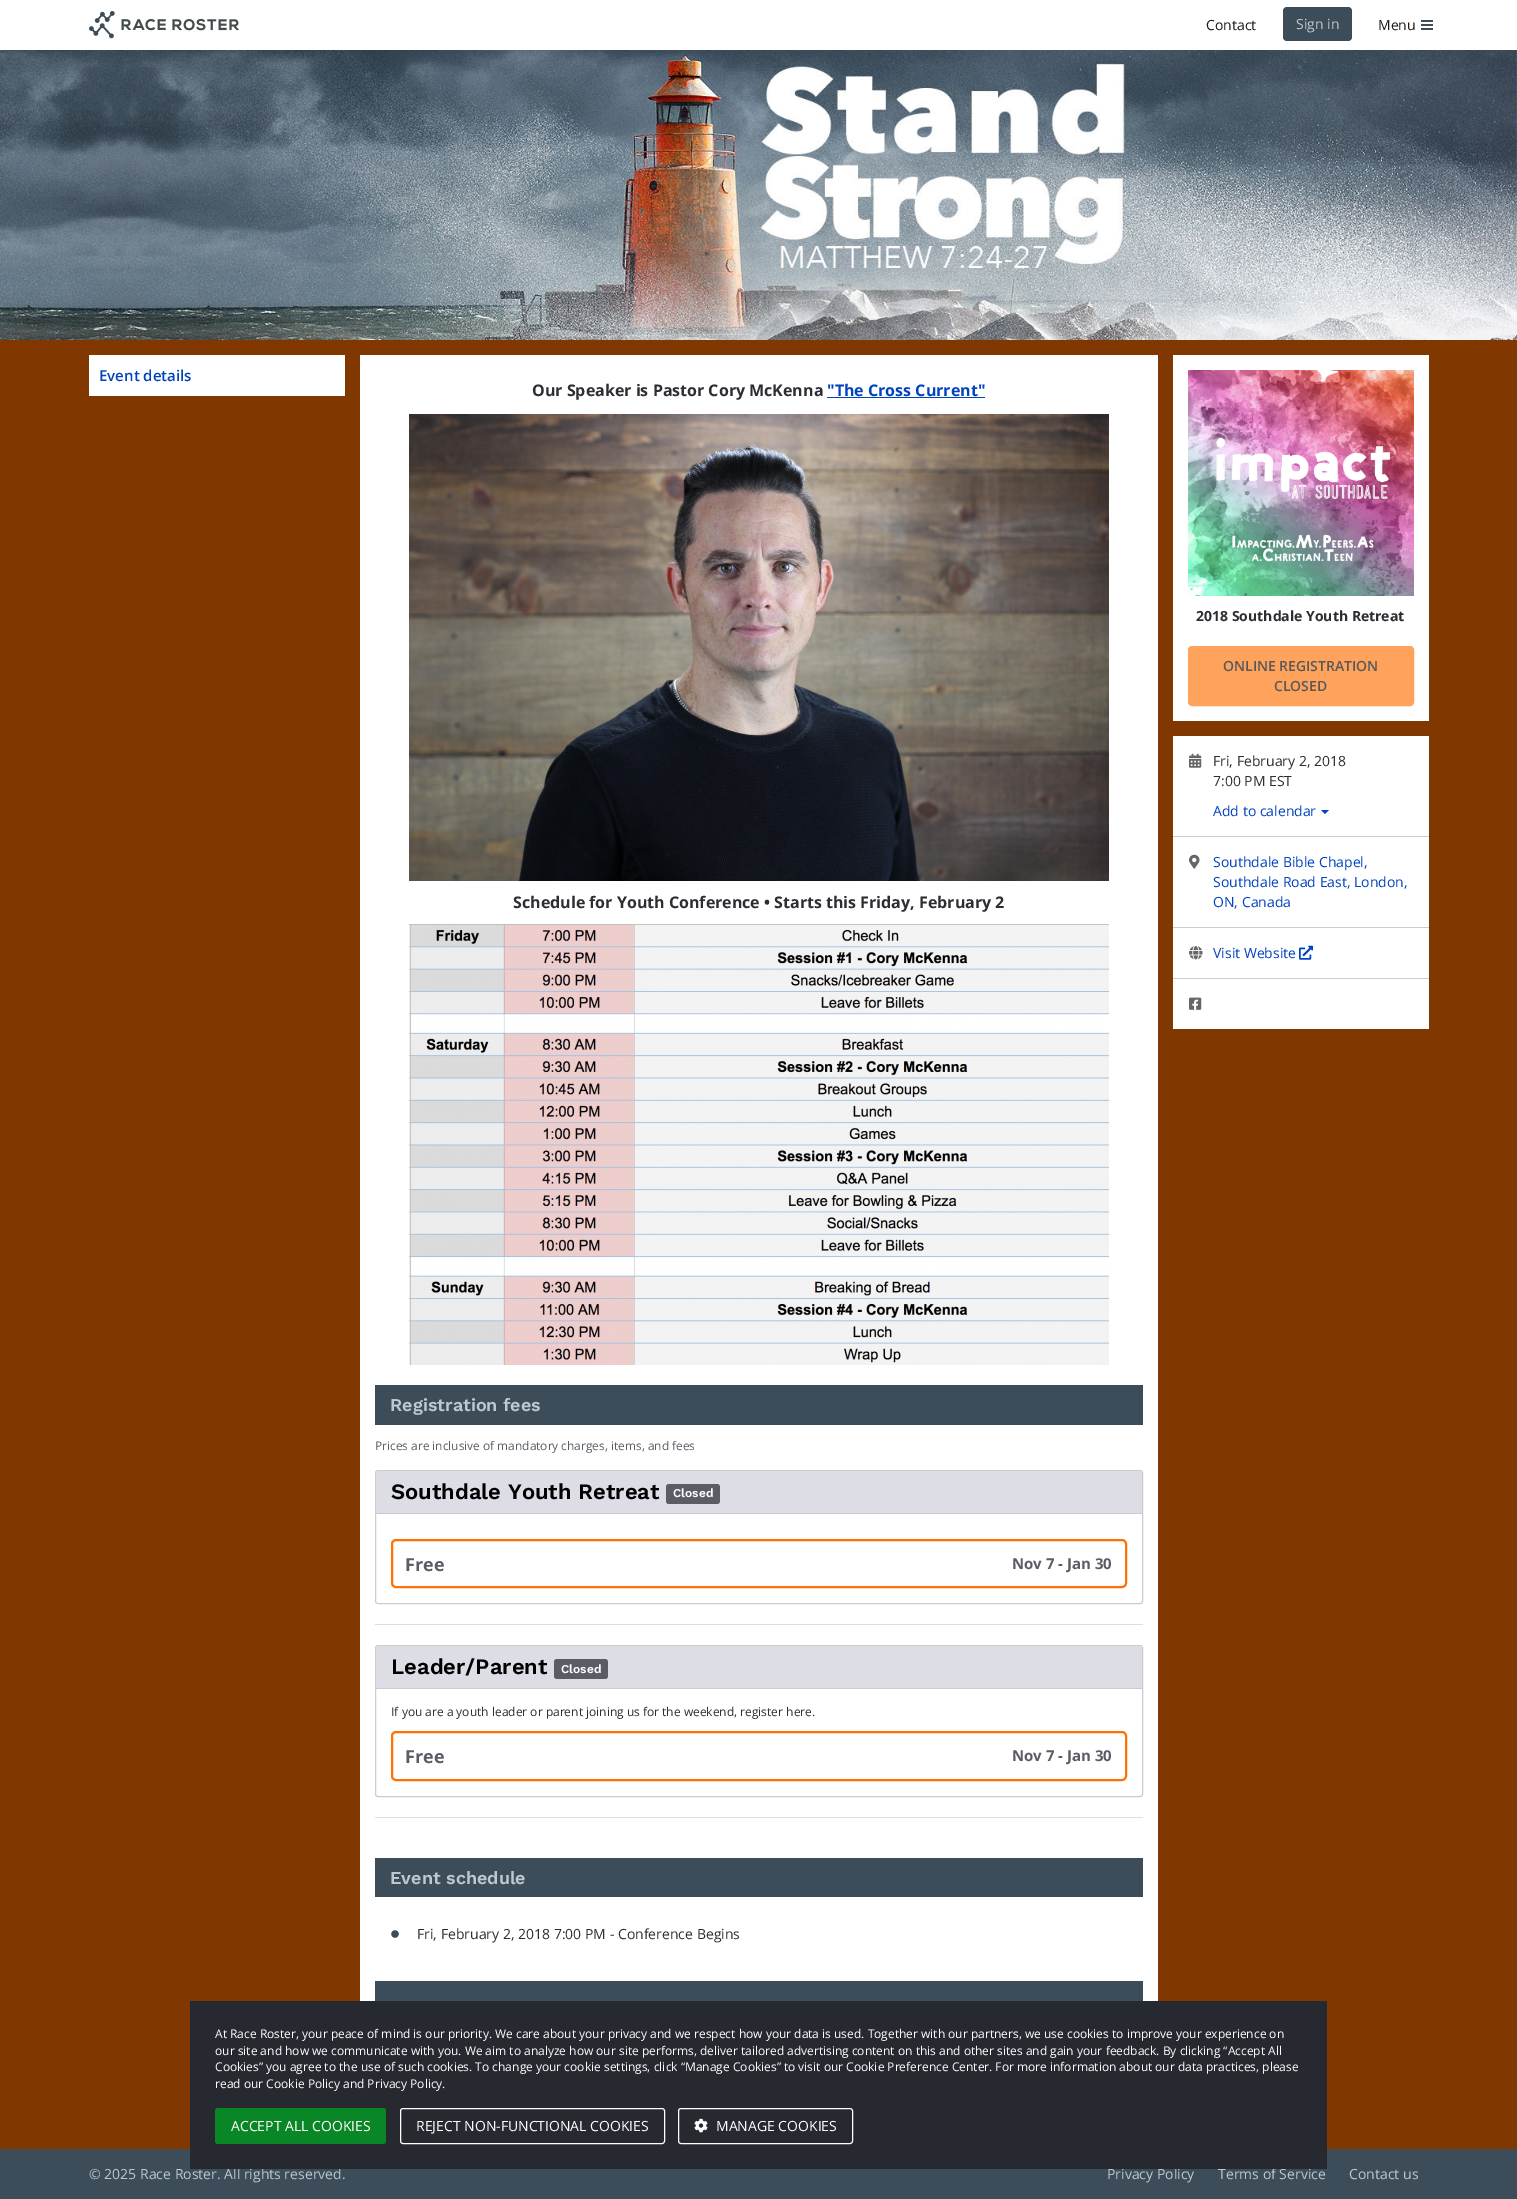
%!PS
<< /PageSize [1517 2199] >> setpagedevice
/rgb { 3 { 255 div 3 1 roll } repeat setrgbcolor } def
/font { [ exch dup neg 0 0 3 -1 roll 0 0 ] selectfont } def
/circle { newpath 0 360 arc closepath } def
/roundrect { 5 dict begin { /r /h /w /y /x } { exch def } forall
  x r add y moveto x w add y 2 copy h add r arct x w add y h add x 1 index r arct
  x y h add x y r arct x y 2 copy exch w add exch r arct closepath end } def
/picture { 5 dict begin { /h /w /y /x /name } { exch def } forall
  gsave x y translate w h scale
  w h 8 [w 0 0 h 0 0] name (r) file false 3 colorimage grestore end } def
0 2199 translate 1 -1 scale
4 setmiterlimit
129 56 0 rgb
0 0 1517 2199 rectfill
255 255 255 rgb
0 0 1517 50 rectfill
(img/1.rgb) 89 11 150 28 picture
60 76 89 rgb
1283 7 69 34 4 roundrect fill
[
  [1421 20 12 2 60 76 89]
  [1421 24 12 2 60 76 89]
  [1421 28 12 2 60 76 89]
] { aload pop rgb rectfill } forall
(img/2.rgb) 0 50 1517 290 picture
[
  [89 355 256 41 255 255 255]
  [360 355 798 1646 255 255 255]
  [827 397 158 1 0 67 191]
] { aload pop rgb rectfill } forall
(img/3.rgb) 409 414 700 467 picture
(img/4.rgb) 409 924 700 441 picture
60 76 89 rgb
375 1385 768 40 rectfill
204 204 204 rgb
375.5 1470.5 767 133 2.5 roundrect stroke
221 221 230 rgb
378 1471 moveto 1140 1471 lineto 1141 1471 1142 1472 1142 1473 curveto 1142 1514 lineto 376 1514 lineto 376 1473 lineto 376 1472 377 1471 378 1471 curveto closepath fill
204 204 204 rgb
376 1513 766 1 rectfill
92 92 102 rgb
666 1484 54 20 3 roundrect fill
255 113 4 rgb
2 setlinewidth
392 1540 734 47 4 roundrect stroke
221 221 230 rgb
375 1624 768 1 rectfill
204 204 204 rgb
1 setlinewidth
375.5 1645.5 767 151 2.5 roundrect stroke
221 221 230 rgb
378 1646 moveto 1140 1646 lineto 1141 1646 1142 1647 1142 1648 curveto 1142 1689 lineto 376 1689 lineto 376 1648 lineto 376 1647 377 1646 378 1646 curveto closepath fill
204 204 204 rgb
376 1688 766 1 rectfill
92 92 102 rgb
554 1659 54 20 3 roundrect fill
255 113 4 rgb
2 setlinewidth
392 1732 734 48 4 roundrect stroke
221 221 230 rgb
375 1817 768 1 rectfill
60 76 89 rgb
375 1858 768 39 rectfill
395 1934 5 circle gsave fill grestore
255 255 255 rgb
stroke
60 76 89 rgb
375 1981 768 20 rectfill
255 255 255 rgb
1173 355 256 366 rectfill
(img/5.rgb) 1188 370 226 226 picture
255 163 92 rgb
1188.5 646.5 225 59 3.5 roundrect gsave fill grestore
1 setlinewidth
stroke
255 255 255 rgb
1173 736 256 293 rectfill
(img/6.rgb) 1189 753 13 15 picture
0 67 191 rgb
1321 810 moveto 1329 810 lineto 1325 814 lineto closepath fill
204 204 204 rgb
1173 836 256 1 rectfill
(img/7.rgb) 1189 854 11 15 picture
1173 927 256 1 rectfill
(img/8.rgb) 1189 946 14 14 picture
(img/9.rgb) 1299 945 14 15 picture
1173 978 256 1 rectfill
(img/10.rgb) 1189 997 13 13 picture
60 76 89 rgb
0 2149 1517 50 rectfill
/OpenSans-Regular 14 font
26 26 26 rgb
1206 30 moveto (Contact) show
189 201 210 rgb
1296 29 moveto (Sign in) show
26 26 26 rgb
1378 30 moveto (Menu) show
/OpenSans-SemiBold 15 font
0 67 191 rgb
99 381 moveto (Event details) show
/OpenSans-Bold 16 font
45 45 51 rgb
532 396 moveto (Our Speaker is Pastor Cory McKenna) show
0 67 191 rgb
827 396 moveto ("The Cross Current") show
45 45 51 rgb
513 908 moveto (Schedule for Youth Conference • Starts this Friday, February 2) show
/WorkSans-SemiBold 18 font
189 201 210 rgb
390 1411 moveto (Registration fees) show
/OpenSans-Regular 11.9 font
92 92 102 rgb
375 1450 moveto (Prices are inclusive of mandatory charges, items, and fees) show
/WorkSans-SemiBold 22 font
0 0 0 rgb
391 1499 moveto (Southdale Youth Retreat) show
/WorkSans-SemiBold 12 font
255 255 255 rgb
673 1497 moveto (Closed) show
/OpenSans-Bold 18 font
92 92 102 rgb
405 1571 moveto (Free) show
/OpenSans-Bold 15 font
1012 1569 moveto (Nov 7 - Jan 30) show
/WorkSans-SemiBold 22 font
0 0 0 rgb
391 1674 moveto (Leader/Parent) show
/WorkSans-SemiBold 12 font
255 255 255 rgb
561 1673 moveto (Closed) show
/OpenSans-Regular 12 font
45 45 51 rgb
391 1716 moveto (If you are a youth leader or parent joining us for the weekend, register here.) show
/OpenSans-Bold 18 font
92 92 102 rgb
405 1763 moveto (Free) show
/OpenSans-Bold 15 font
1012 1761 moveto (Nov 7 - Jan 30) show
/WorkSans-SemiBold 18 font
189 201 210 rgb
390 1884 moveto (Event schedule) show
/OpenSans-Regular 14 font
45 45 51 rgb
417 1939 moveto (Fri, February 2, 2018 7:00 PM - Conference Begins) show
/OpenSans-Bold 14 font
1196 621 moveto (2018 Southdale Youth Retreat) show
/OpenSans-SemiBold 14 font
89 89 89 rgb
1223 671 moveto (ONLINE REGISTRATION) show
1274 691 moveto (CLOSED) show
/OpenSans-Regular 14 font
45 45 51 rgb
1213 766 moveto (Fri, February 2, 2018) show
1213 786 moveto (7:00 PM EST) show
0 67 191 rgb
[
  [(Add to calendar) 1213 816]
  [(Southdale Bible Chapel,) 1213 867]
  [(Southdale Road East, London,) 1213 887]
  [(ON, Canada) 1213 907]
  [(Visit Website) 1213 958]
] { aload pop moveto show } forall
189 201 210 rgb
[
  [(© 2025 Race Roster. All rights reserved.) 89 2179]
  [(Privacy Policy) 1107 2179]
  [(Terms of Service) 1218 2179]
  [(Contact us) 1349 2179]
] { aload pop moveto show } forall
39 41 48 rgb
190 2001 1137 168 rectfill
/OpenSans-Regular 12 font
255 255 255 rgb
[
  [(At Race Roster, your peace of mind is our priority. We care about your privacy and we respect how your data is used. Together with our partners, we use cookies to improve your experience on) 215 2038]
  [(our site and how we communicate with you. We aim to analyze how our site performs, deliver tailored advertising content on this and other sites and gain your feedback. By clicking “Accept All) 215 2055]
  [(Cookies” you agree to the use of such cookies. To change your cookie settings, click “Manage Cookies” to visit our Cookie Preference Center. For more information about our data practices, please) 215 2071]
  [(read our Cookie Policy and Privacy Policy.) 215 2088]
] { aload pop moveto show } forall
9 135 38 rgb
215 2108 171 36 3 roundrect fill
/OpenSans-Regular 14 font
255 255 255 rgb
231 2131 moveto (ACCEPT ALL COOKIES) show
400.5 2108.5 264 35 2.5 roundrect stroke
416 2131 moveto (REJECT NON-FUNCTIONAL COOKIES) show
678.5 2108.5 174 35 2.5 roundrect stroke
(img/11.rgb) 694 2118 14 15 picture
716 2131 moveto (MANAGE COOKIES) show
showpage
